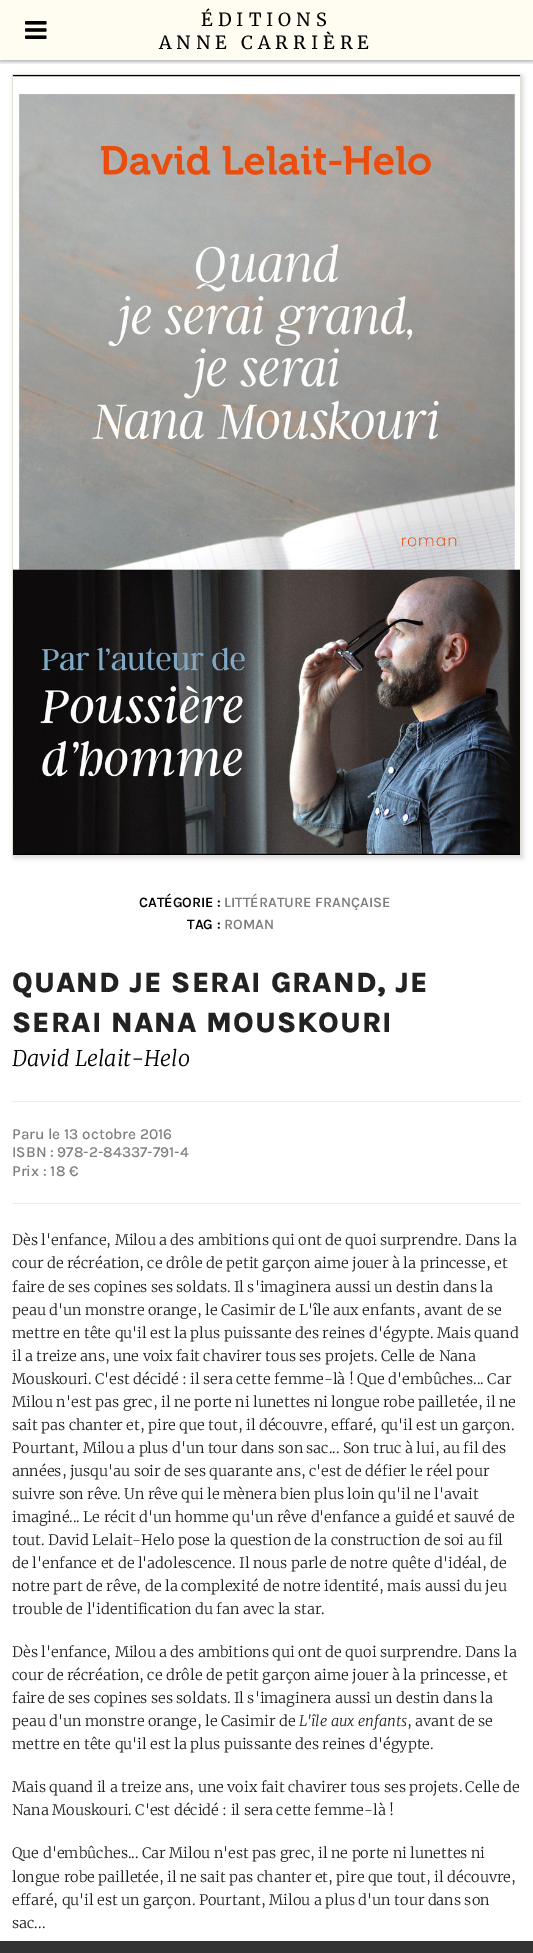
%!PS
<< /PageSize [533 1953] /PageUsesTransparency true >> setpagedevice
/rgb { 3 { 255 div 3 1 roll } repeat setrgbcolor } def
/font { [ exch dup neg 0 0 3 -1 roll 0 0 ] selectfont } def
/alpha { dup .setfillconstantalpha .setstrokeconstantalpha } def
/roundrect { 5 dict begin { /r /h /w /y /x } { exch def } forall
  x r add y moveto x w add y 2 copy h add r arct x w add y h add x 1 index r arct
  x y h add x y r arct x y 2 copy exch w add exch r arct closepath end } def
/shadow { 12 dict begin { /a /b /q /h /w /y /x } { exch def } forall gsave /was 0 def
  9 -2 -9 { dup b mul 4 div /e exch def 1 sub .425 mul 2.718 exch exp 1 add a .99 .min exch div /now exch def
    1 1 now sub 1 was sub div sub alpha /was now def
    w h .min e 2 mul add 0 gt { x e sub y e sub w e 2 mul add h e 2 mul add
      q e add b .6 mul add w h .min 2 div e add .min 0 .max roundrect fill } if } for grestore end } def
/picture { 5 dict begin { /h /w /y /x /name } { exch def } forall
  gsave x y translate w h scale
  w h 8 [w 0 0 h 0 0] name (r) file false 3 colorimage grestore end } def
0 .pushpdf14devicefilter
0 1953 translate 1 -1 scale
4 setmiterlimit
255 252 241 rgb
0 0 533 1953 rectfill
255 255 255 rgb
0 60 533 1881 rectfill
gsave
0 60 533 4 rectclip
0 0 0 rgb
0 2 533 60 0 2 0.3 shadow
grestore
(img/1.rgb) 25 21 22 18 picture
0 0 0 rgb
14 76 509 782 0 2.5 0.15 shadow
226 224 214 rgb
12.5 74.5 508 781 rectstroke
(img/2.rgb) 13 75 507 780 picture
[
  [12 1101 509 1 241 237 222]
  [12 1203 509 1 241 237 222]
  [0 1941 533 12 51 51 51]
] { aload pop rgb rectfill } forall
/Merriweather-Regular 18 font
0 0 0 rgb
201 26 moveto 5 0 (ÉDITIONS) ashow
159 49 moveto 5 0 (ANNE CARRIÈRE) ashow
/Karla-SemiBold 14.4 font
139 907 moveto (CATÉGORIE :) show
126 126 126 rgb
224 907 moveto (LITTÉRATURE FRANÇAISE) show
0 0 0 rgb
187 929 moveto (TAG :) show
126 126 126 rgb
224 929 moveto (ROMAN) show
/Karla-ExtraBold 28.75 font
34 34 34 rgb
12 992 moveto 1 0 (QUAND JE SERAI GRAND, JE) ashow
12 1032 moveto 1 0 (SERAI NANA MOUSKOURI) ashow
/Merriweather-LightItalic 21.5 font
0 0 0 rgb
12 1066 moveto (David Lelait-Helo) show
/Karla-Medium 15.25 font
126 126 126 rgb
[
  [(Paru le 13 octobre 2016) 12 1139]
  [(ISBN : 978-2-84337-791-4) 12 1157]
  [(Prix : 18 €) 12 1176]
] { aload pop moveto show } forall
/Merriweather-Light 14.4 font
34 34 34 rgb
[
  [(Dès l'enfance, Milou a des ambitions qui ont de quoi surprendre. Dans la) 12 1245]
  [(cour de récréation, ce drôle de petit garçon aime jouer à la princesse, et) 12 1268]
  [(faire de ses copines ses soldats. Il s'imaginera aussi un destin dans la) 12 1292]
  [(peau d'un monstre orange, le Casimir de L'île aux enfants, avant de se) 12 1315]
  [(mettre en tête qu'il est la plus puissante des reines d'égypte. Mais quand) 12 1338]
  [(il a treize ans, une voix fait chavirer tous ses projets. Celle de Nana) 12 1361]
  [(Mouskouri. C'est décidé : il sera cette femme-là ! Que d'embûches... Car) 12 1384]
  [(Milou n'est pas grec, il ne porte ni lunettes ni longue robe pailletée, il ne) 12 1407]
  [(sait pas chanter et, pire que tout, il découvre, effaré, qu'il est un garçon.) 12 1430]
  [(Pourtant, Milou a plus d'un tour dans son sac... Son truc à lui, au fil des) 12 1453]
  [(années, jusqu'au soir de ses quarante ans, c'est de défier le réel pour) 12 1476]
  [(suivre son rêve. Un rêve qui le mènera bien plus loin qu'il ne l'avait) 12 1499]
  [(imaginé... Le récit d'un homme qu'un rêve d'enfance a guidé et sauvé de) 12 1522]
  [(tout. David Lelait-Helo pose la question de la construction de soi au fil) 12 1545]
  [(de l'enfance et de l'adolescence. Il nous parle de notre quête d'idéal, de) 12 1568]
  [(notre part de rêve, de la complexité de notre identité, mais aussi du jeu) 12 1591]
  [(trouble de l'identification du fan avec la star.) 12 1614]
  [(Dès l'enfance, Milou a des ambitions qui ont de quoi surprendre. Dans la) 12 1657]
  [(cour de récréation, ce drôle de petit garçon aime jouer à la princesse, et) 12 1680]
  [(faire de ses copines ses soldats. Il s'imaginera aussi un destin dans la) 12 1703]
  [(peau d'un monstre orange, le Casimir de) 12 1726]
] { aload pop moveto show } forall
/Merriweather-LightItalic 14.4 font
299 1726 moveto (L'île aux enfants) show
/Merriweather-Light 14.4 font
[
  [(, avant de se) 407 1726]
  [(mettre en tête qu'il est la plus puissante des reines d'égypte.) 12 1749]
  [(Mais quand il a treize ans, une voix fait chavirer tous ses projets. Celle de) 12 1792]
  [(Nana Mouskouri. C'est décidé : il sera cette femme-là !) 12 1815]
  [(Que d'embûches... Car Milou n'est pas grec, il ne porte ni lunettes ni) 12 1858]
  [(longue robe pailletée, il ne sait pas chanter et, pire que tout, il découvre,) 12 1882]
  [(effaré, qu'il est un garçon. Pourtant, Milou a plus d'un tour dans son) 12 1905]
  [(sac...) 12 1928]
] { aload pop moveto show } forall
.poppdf14devicefilter showpage
